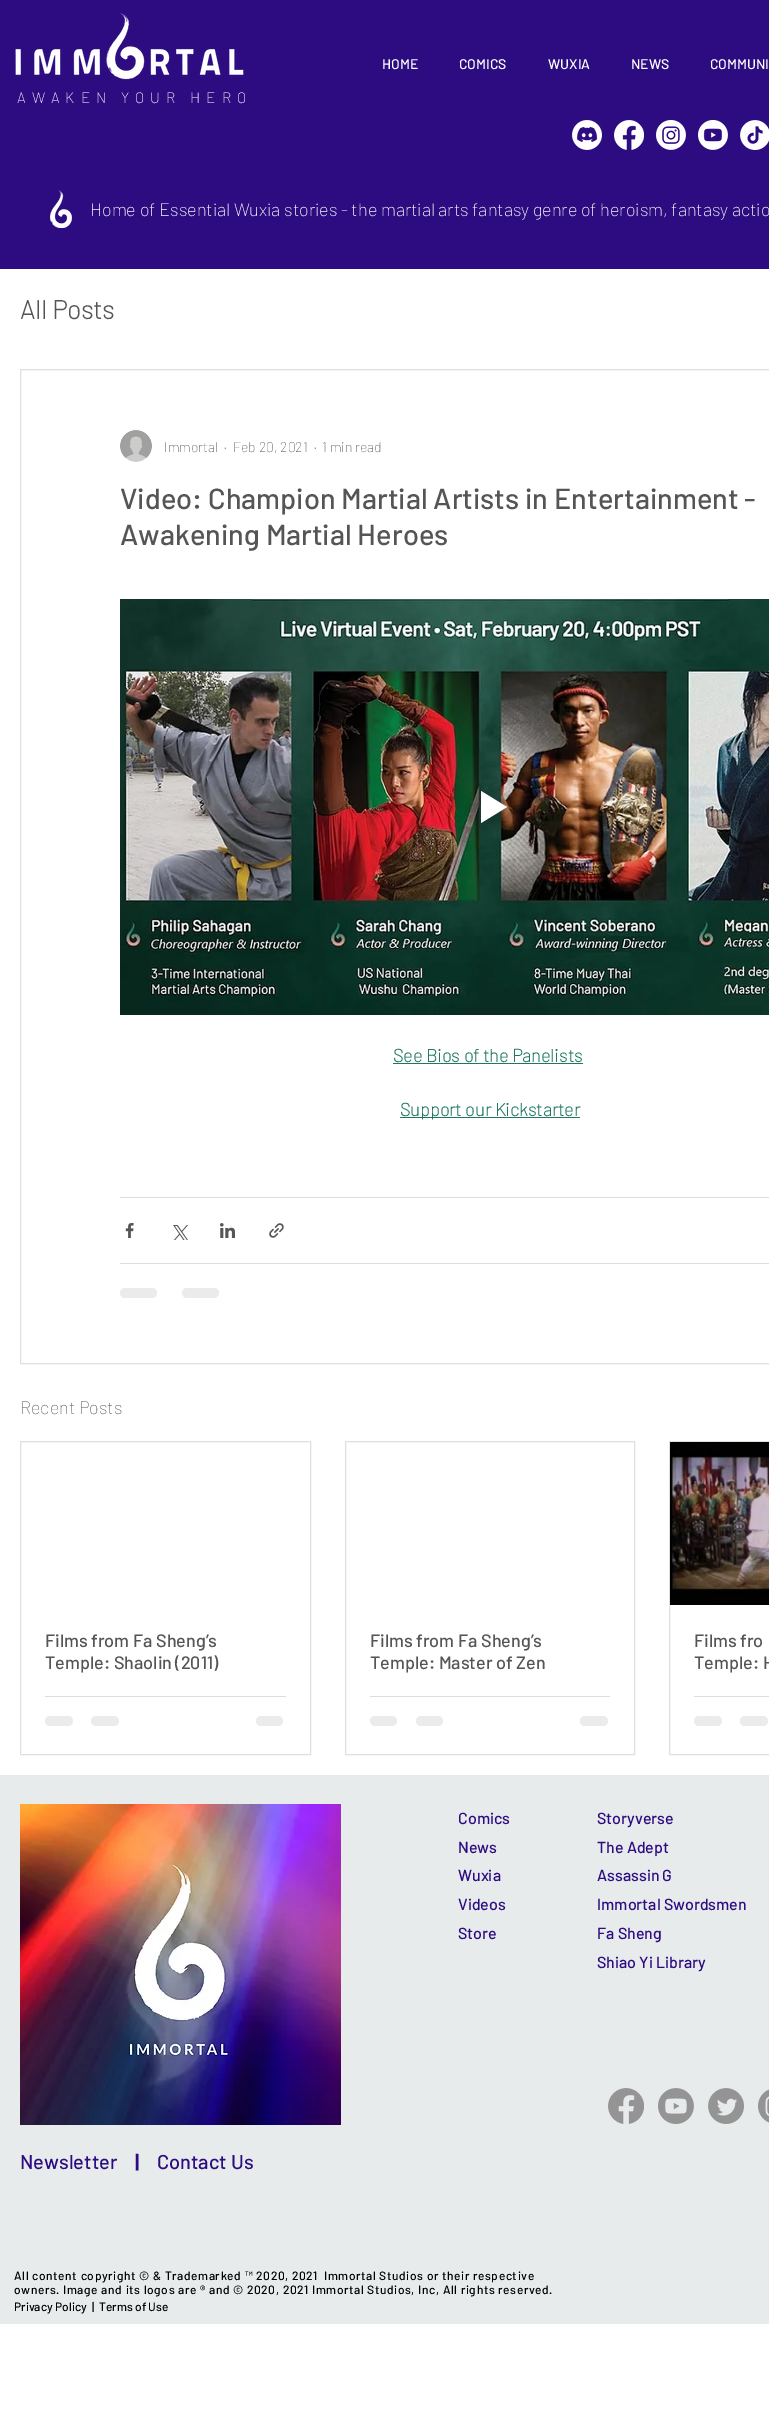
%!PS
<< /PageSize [769 2436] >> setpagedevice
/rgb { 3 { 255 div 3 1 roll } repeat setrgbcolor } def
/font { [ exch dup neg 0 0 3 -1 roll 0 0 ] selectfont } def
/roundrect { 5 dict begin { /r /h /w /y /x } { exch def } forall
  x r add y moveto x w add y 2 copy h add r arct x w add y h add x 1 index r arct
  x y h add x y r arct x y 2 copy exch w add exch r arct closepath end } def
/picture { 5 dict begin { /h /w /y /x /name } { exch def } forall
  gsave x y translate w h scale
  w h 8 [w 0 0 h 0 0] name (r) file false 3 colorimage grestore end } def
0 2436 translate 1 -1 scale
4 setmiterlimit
255 255 255 rgb
0 0 769 2436 rectfill
45 11 128 rgb
0 0 769 269 rectfill
(img/1.rgb) 15 13 229 67 picture
(img/2.rgb) 572 120 30 30 picture
(img/3.rgb) 614 120 30 30 picture
(img/4.rgb) 656 120 30 30 picture
(img/5.rgb) 698 120 30 30 picture
(img/6.rgb) 740 120 29 30 picture
(img/7.rgb) 50 190 22 38 picture
224 224 224 rgb
20.5 369.5 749 994 rectstroke
(img/8.rgb) 120 430 32 32 picture
(img/9.rgb) 120 599 649 416 picture
255 255 255 rgb
481 823 moveto 481 791 lineto 507 807 lineto closepath fill
[
  [393 1063 190 1 33 120 98]
  [400 1117 180 1 33 120 98]
  [120 1197 649 1 221 221 221]
] { aload pop rgb rectfill } forall
(img/10.rgb) 125 1223 9 15 picture
(img/11.rgb) 173 1225 15 15 picture
(img/12.rgb) 220 1223 15 15 picture
(img/13.rgb) 269 1223 15 15 picture
120 1263 649 1 rectfill
235 235 235 rgb
120 1288 37 10 5 roundrect fill
182 1288 37 10 5 roundrect fill
224 224 224 rgb
20.5 1441.5 290 313 rectstroke
221 221 221 rgb
45 1696 241 1 rectfill
235 235 235 rgb
45 1716 28 10 5 roundrect fill
91 1716 28 10 5 roundrect fill
256 1716 27 10 5 roundrect fill
224 224 224 rgb
345.5 1441.5 289 313 rectstroke
221 221 221 rgb
370 1696 240 1 rectfill
235 235 235 rgb
370 1716 27 10 5 roundrect fill
416 1716 27 10 5 roundrect fill
580 1716 28 10 5 roundrect fill
224 224 224 rgb
669.5 1441.5 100 313 rectstroke
(img/14.rgb) 670 1442 99 163 picture
221 221 221 rgb
694 1696 75 1 rectfill
235 235 235 rgb
694 1716 28 10 5 roundrect fill
740 1716 28 10 5 roundrect fill
232 235 236 rgb
0 1775 769 549 rectfill
(img/15.rgb) 20 1804 321 321 picture
(img/16.rgb) 608 2088 36 36 picture
(img/17.rgb) 658 2088 36 36 picture
(img/18.rgb) 708 2088 36 36 picture
(img/19.rgb) 758 2089 11 34 picture
/Barlow-Medium 14 font
255 255 255 rgb
[
  [(HOME) 382 69]
  [(COMICS) 459 69]
  [(WUXIA) 548 69]
  [(NEWS) 631 69]
  [(COMMUNI) 710 69]
] { aload pop moveto show } forall
/Barlow-ExtraLight 15 font
17 103 moveto 6 0 (AWAKEN YOUR HERO) ashow
/Barlow-ExtraLight 18 font
90 216 moveto (Home of Essential Wuxia stories - the martial arts fantasy genre of heroism, fantasy actio) show
/Barlow-Bold 26 font
85 85 85 rgb
20 319 moveto (All Posts) show
/Barlow-Thin 14 font
[
  [(Immortal) 164 452]
  [(·) 224 452]
  [(Feb 20, 2021) 233 452]
  [(·) 314 452]
  [(1 min read) 322 452]
] { aload pop moveto show } forall
/Barlow-Medium 29 font
120 509 moveto (Video: Champion Martial Artists in Entertainment -) show
120 545 moveto (Awakening Martial Heroes) show
/Barlow-Bold 18 font
33 120 98 rgb
393 1062 moveto (See Bios of the Panelists) show
400 1116 moveto (Support our Kickstarter) show
/Barlow-Thin 18 font
85 85 85 rgb
20 1414 moveto (Recent Posts) show
/Barlow-Medium 18 font
[
  [(Films from Fa Sheng’s) 45 1647]
  [(Temple: Shaolin \(2011\)) 45 1669]
  [(Films from Fa Sheng’s) 370 1647]
  [(Temple: Master of Zen) 370 1669]
  [(Films fro) 694 1647]
  [(Temple: H) 694 1669]
] { aload pop moveto show } forall
/Barlow-Medium 16 font
45 11 128 rgb
[
  [(Comics) 458 1824]
  [(News) 458 1853]
  [(Wuxia) 458 1881]
  [(Videos) 458 1910]
  [(Store) 458 1939]
  [(Storyverse) 597 1824]
  [(The Adept) 597 1853]
  [(Assassin G) 597 1881]
  [(Immortal Swordsmen) 597 1910]
  [(Fa Sheng) 597 1939]
  [(Shiao Yi Library) 597 1968]
] { aload pop moveto show } forall
/Barlow-Medium 20 font
20 2169 moveto (Newsletter) show
/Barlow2-Bold 20 font
135 2169 moveto (|) show
/Barlow-Medium 20 font
157 2169 moveto (Contact Us) show
/Barlow-Medium 12 font
0 0 0 rgb
14 2280 moveto 0.6 0 (All content copyright © & Trademarked) ashow
/Barlow-Regular 12 font
245 2280 moveto 0.6 0 (™) ashow
/Barlow-Medium 12 font
256 2280 moveto 0.6 0 (2020, 2021  Immortal Studios or their respective) ashow
14 2294 moveto 0.6 0 (owners. Image and its logos are ® and © 2020, 2021 Immortal Studios, Inc, All rights reserved.) ashow
[
  [(Privacy Policy) 14 2311]
  [(|) 92 2311]
  [(Terms of Use) 99 2311]
] { aload pop moveto show } forall
showpage
